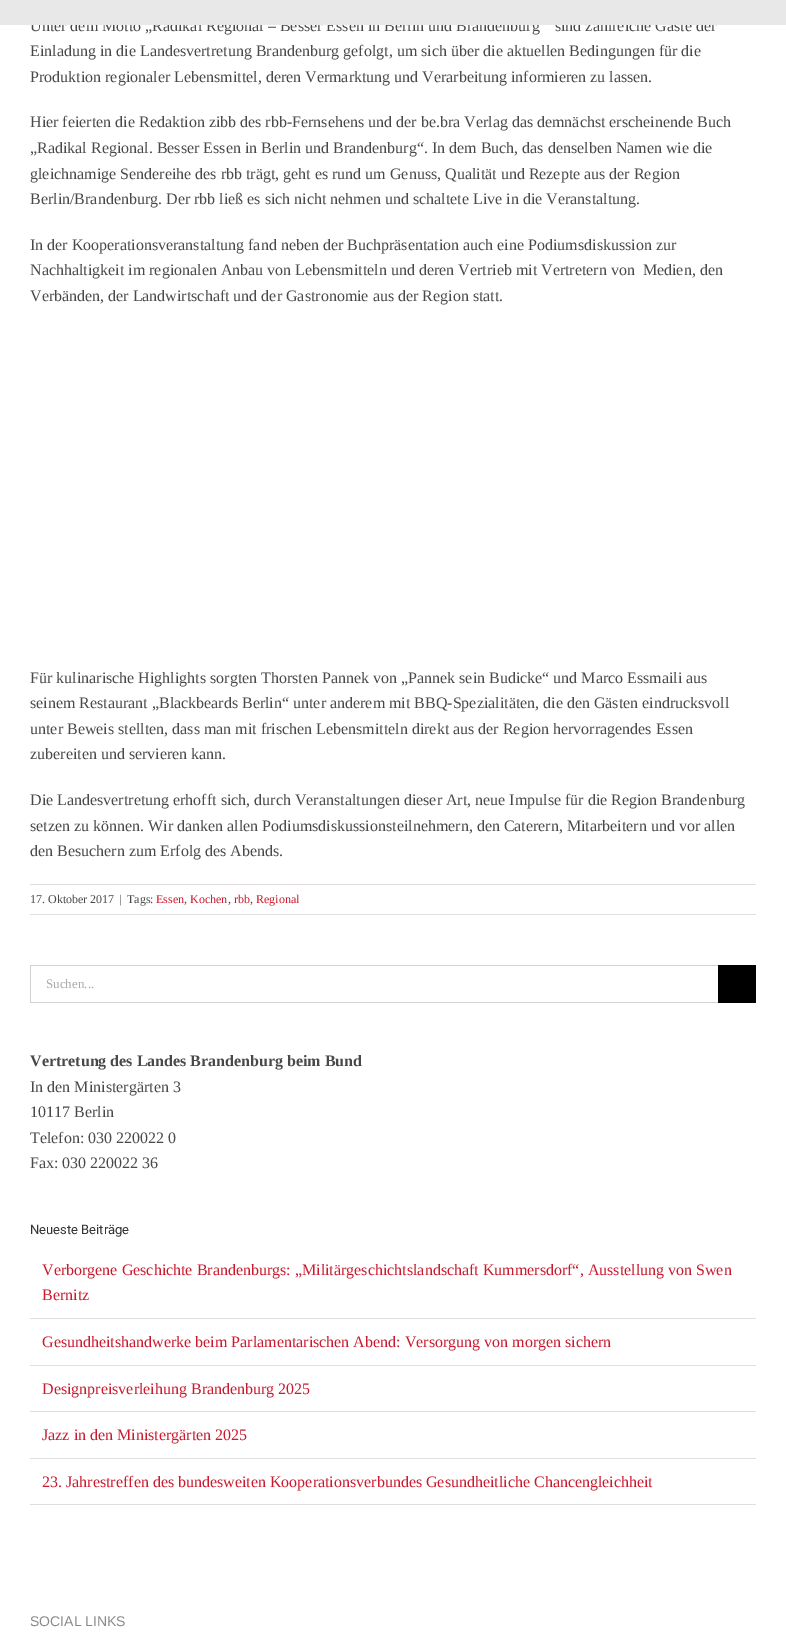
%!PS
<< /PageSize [786 1632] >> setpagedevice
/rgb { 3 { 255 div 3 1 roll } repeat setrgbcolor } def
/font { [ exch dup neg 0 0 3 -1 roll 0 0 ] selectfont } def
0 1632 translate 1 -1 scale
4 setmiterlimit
255 255 255 rgb
0 0 786 1632 rectfill
[
  [30 884 726 1 224 222 222]
  [30 914 726 1 224 222 222]
  [30 965 688 1 210 210 210]
  [30 1002 688 1 210 210 210]
  [30 965 1 38 210 210 210]
  [718 965 38 38 0 0 0]
  [30 1318 726 1 224 222 222]
  [30 1365 726 1 224 222 222]
  [30 1411 726 1 224 222 222]
  [30 1458 726 1 224 222 222]
  [30 1504 726 1 224 222 222]
] { aload pop rgb rectfill } forall
/LiberationSerif-Regular 16 font
73 73 73 rgb
30 31 moveto (Unter dem Motto „Radikal Regional – Besser Essen in Berlin und Brandenburg“  sind zahlreiche Gäste der) show
232 232 232 rgb
0 0 786 25 rectfill
73 73 73 rgb
[
  [(Einladung in die Landesvertretung Brandenburg gefolgt, um sich über die aktuellen Bedingungen für die) 30 56]
  [(Produktion regionaler Lebensmittel, deren Vermarktung und Verarbeitung informieren zu lassen.) 30 82]
  [(Hier feierten die Redaktion zibb des rbb-Fernsehens und der be.bra Verlag das demnächst erscheinende Buch) 30 127]
  [(„Radikal Regional. Besser Essen in Berlin und Brandenburg“. In dem Buch, das denselben Namen wie die) 30 153]
  [(gleichnamige Sendereihe des rbb trägt, geht es rund um Genuss, Qualität und Rezepte aus der Region) 30 179]
  [(Berlin/Brandenburg. Der rbb ließ es sich nicht nehmen und schaltete Live in die Veranstaltung.) 30 204]
  [(In der Kooperationsveranstaltung fand neben der Buchpräsentation auch eine Podiumsdiskussion zur) 30 250]
  [(Nachhaltigkeit im regionalen Anbau von Lebensmitteln und deren Vertrieb mit Vertretern von  Medien, den) 30 275]
  [(Verbänden, der Landwirtschaft und der Gastronomie aus der Region statt.) 30 301]
  [(Für kulinarische Highlights sorgten Thorsten Pannek von „Pannek sein Budicke“ und Marco Essmaili aus) 30 683]
  [(seinem Restaurant „Blackbeards Berlin“ unter anderem mit BBQ-Spezialitäten, die den Gästen eindrucksvoll) 30 708]
  [(unter Beweis stellten, dass man mit frischen Lebensmitteln direkt aus der Region hervorragendes Essen) 30 734]
  [(zubereiten und servieren kann.) 30 759]
  [(Die Landesvertretung erhofft sich, durch Veranstaltungen dieser Art, neue Impulse für die Region Brandenburg) 30 805]
  [(setzen zu können. Wir danken allen Podiumsdiskussionsteilnehmern, den Caterern, Mitarbeitern und vor allen) 30 831]
  [(den Besuchern zum Erfolg des Abends.) 30 856]
] { aload pop moveto show } forall
/LiberationSerif-Regular 12 font
[
  [(17. Oktober 2017) 30 903]
  [(|) 119 903]
  [(Tags:) 127 903]
] { aload pop moveto show } forall
201 26 46 rgb
156 903 moveto (Essen) show
73 73 73 rgb
184 903 moveto (,) show
201 26 46 rgb
190 903 moveto (Kochen) show
73 73 73 rgb
228 903 moveto (,) show
201 26 46 rgb
234 903 moveto (rbb) show
73 73 73 rgb
250 903 moveto (,) show
201 26 46 rgb
256 903 moveto (Regional) show
/LiberationSerif-Regular 13 font
170 169 169 rgb
46 988 moveto (Suchen...) show
/LiberationSerif-Bold 16 font
73 73 73 rgb
30 1066 moveto (Vertretung des Landes Brandenburg beim Bund) show
/LiberationSerif-Regular 16 font
[
  [(In den Ministergärten 3) 30 1092]
  [(10117 Berlin) 30 1117]
  [(Telefon: 030 220022 0) 30 1143]
  [(Fax: 030 220022 36) 30 1168]
] { aload pop moveto show } forall
/Roboto-Regular 13 font
51 51 51 rgb
30 1234 moveto (Neueste Beiträge) show
/LiberationSerif-Regular 16 font
201 26 46 rgb
[
  [(Verborgene Geschichte Brandenburgs: „Militärgeschichtslandschaft Kummersdorf“, Ausstellung von Swen) 42 1275]
  [(Bernitz) 42 1300]
  [(Gesundheitshandwerke beim Parlamentarischen Abend: Versorgung von morgen sichern) 42 1347]
  [(Designpreisverleihung Brandenburg 2025) 42 1394]
  [(Jazz in den Ministergärten 2025) 42 1440]
  [(23. Jahrestreffen des bundesweiten Kooperationsverbundes Gesundheitliche Chancengleichheit) 42 1487]
] { aload pop moveto show } forall
/LiberationSans-Regular 14 font
140 137 137 rgb
30 1626 moveto (SOCIAL LINKS) show
showpage
